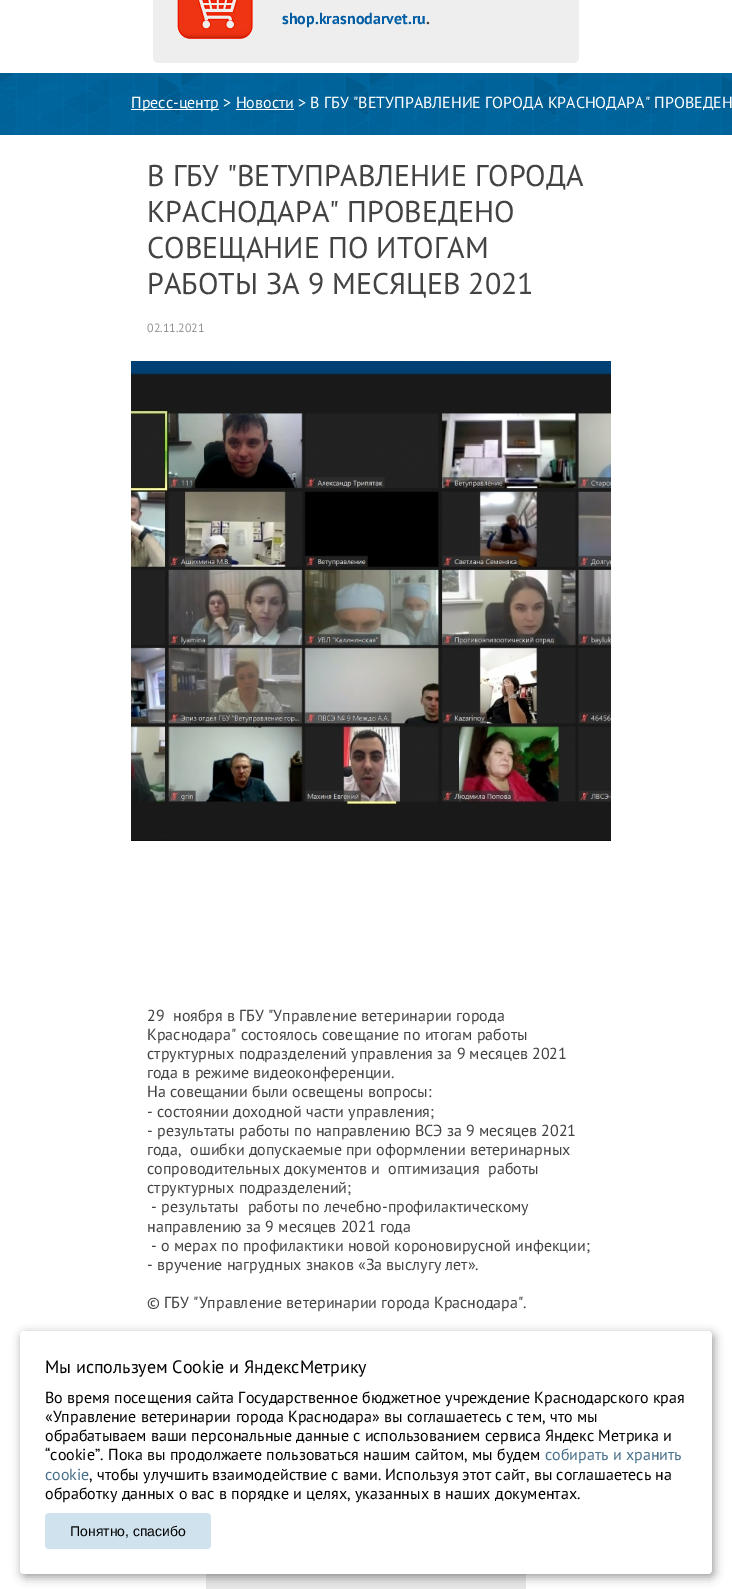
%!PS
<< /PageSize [732 1589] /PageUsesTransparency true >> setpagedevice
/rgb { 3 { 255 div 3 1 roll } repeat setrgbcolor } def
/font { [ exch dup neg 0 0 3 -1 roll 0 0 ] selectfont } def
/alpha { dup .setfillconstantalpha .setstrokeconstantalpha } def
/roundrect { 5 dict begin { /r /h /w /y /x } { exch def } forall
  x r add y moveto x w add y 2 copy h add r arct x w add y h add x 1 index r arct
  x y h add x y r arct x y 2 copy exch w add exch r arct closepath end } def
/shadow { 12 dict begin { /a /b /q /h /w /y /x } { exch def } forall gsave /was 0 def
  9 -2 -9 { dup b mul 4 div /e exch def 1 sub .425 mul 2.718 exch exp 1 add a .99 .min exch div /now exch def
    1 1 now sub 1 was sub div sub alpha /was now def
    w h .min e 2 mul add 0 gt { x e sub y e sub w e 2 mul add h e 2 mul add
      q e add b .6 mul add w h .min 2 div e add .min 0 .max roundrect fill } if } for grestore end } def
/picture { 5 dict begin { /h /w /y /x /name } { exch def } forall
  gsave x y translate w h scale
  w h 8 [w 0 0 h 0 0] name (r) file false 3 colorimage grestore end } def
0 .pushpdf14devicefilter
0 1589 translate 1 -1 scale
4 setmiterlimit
255 255 255 rgb
0 0 732 1589 rectfill
(img/1.rgb) 153 0 426 63 picture
(img/2.rgb) 0 73 732 62 picture
131 109 88 1 rectfill
236 109 58 1 rectfill
(img/3.rgb) 131 361 480 480 picture
232 232 232 rgb
206 1574 320 15 rectfill
0 0 0 rgb
22 1334 692 243 4 5 0.4 shadow
255 255 255 rgb
20 1331 692 243 4 roundrect fill
208 226 238 rgb
45 1513 166 36 4 roundrect fill
/PTSans-Bold 16 font
0 93 164 rgb
282 24 moveto (shop.krasnodarvet.ru) show
67 67 67 rgb
426 24 moveto (.) show
/PTSans-Regular 16 font
255 255 255 rgb
131 108 moveto (Пресс-центр > Новости > В ГБУ "ВЕТУПРАВЛЕНИЕ ГОРОДА КРАСНОДАРА" ПРОВЕДЕН) show
/PTSans-Regular 30 font
67 67 67 rgb
[
  [(В ГБУ "ВЕТУПРАВЛЕНИЕ ГОРОДА) 147 186]
  [(КРАСНОДАРА" ПРОВЕДЕНО) 147 222]
  [(СОВЕЩАНИЕ ПО ИТОГАМ) 147 258]
  [(РАБОТЫ ЗА 9 МЕСЯЦЕВ 2021) 147 294]
] { aload pop moveto show } forall
/PTSans-Regular 12 font
148 148 148 rgb
147 332 moveto (02.11.2021) show
/PTSans-Regular 16 font
67 67 67 rgb
[
  [(29  ноября в ГБУ "Управление ветеринарии города) 147 1021]
  [(Краснодара" состоялось совещание по итогам работы) 147 1040]
  [(структурных подразделений управления за 9 месяцев 2021) 147 1059]
  [(года в режиме видеоконференции.) 147 1078]
  [(На совещании были освещены вопросы:) 147 1097]
  [(- состоянии доходной части управления;) 147 1117]
  [(- результаты работы по направлению ВСЭ за 9 месяцев 2021) 147 1136]
  [(года,  ошибки допускаемые при оформлении ветеринарных) 147 1155]
  [(сопроводительных документов и  оптимизация  работы) 147 1174]
  [(структурных подразделений;) 147 1193]
  [(- результаты  работы по лечебно-профилактическому) 151 1212]
  [(направлению за 9 месяцев 2021 года) 147 1232]
  [(- о мерах по профилактики новой короновирусной инфекции;) 151 1251]
  [(- вручение нагрудных знаков «За выслугу лет».) 147 1270]
  [(© ГБУ "Управление ветеринарии города Краснодара".) 147 1308]
] { aload pop moveto show } forall
/PTSans-Regular 18 font
0 0 0 rgb
45 1373 moveto (Мы используем Сookie и ЯндексМетрику) show
/PTSans-Regular 16 font
[
  [(Во время посещения сайта Государственное бюджетное учреждение Краснодарского края) 45 1403]
  [(«Управление ветеринарии города Краснодара» вы соглашаетесь с тем, что мы) 45 1422]
  [(обрабатываем ваши персональные данные с использованием сервиса Яндекс Метрика и) 45 1441]
  [(“cookie”. Пока вы продолжаете пользоваться нашим сайтом, мы будем) 45 1460]
] { aload pop moveto show } forall
72 111 137 rgb
545 1460 moveto (собирать и хранить) show
45 1480 moveto (cookie) show
0 0 0 rgb
89 1480 moveto (, чтобы улучшить взаимодействие с вами. Используя этот сайт, вы соглашаетесь на) show
45 1499 moveto (обработку данных о вас в порядке и целях, указанных в наших документах.) show
/LiberationSans-Regular 14 font
70 1536 moveto (Понятно, спасибо) show
.poppdf14devicefilter showpage
